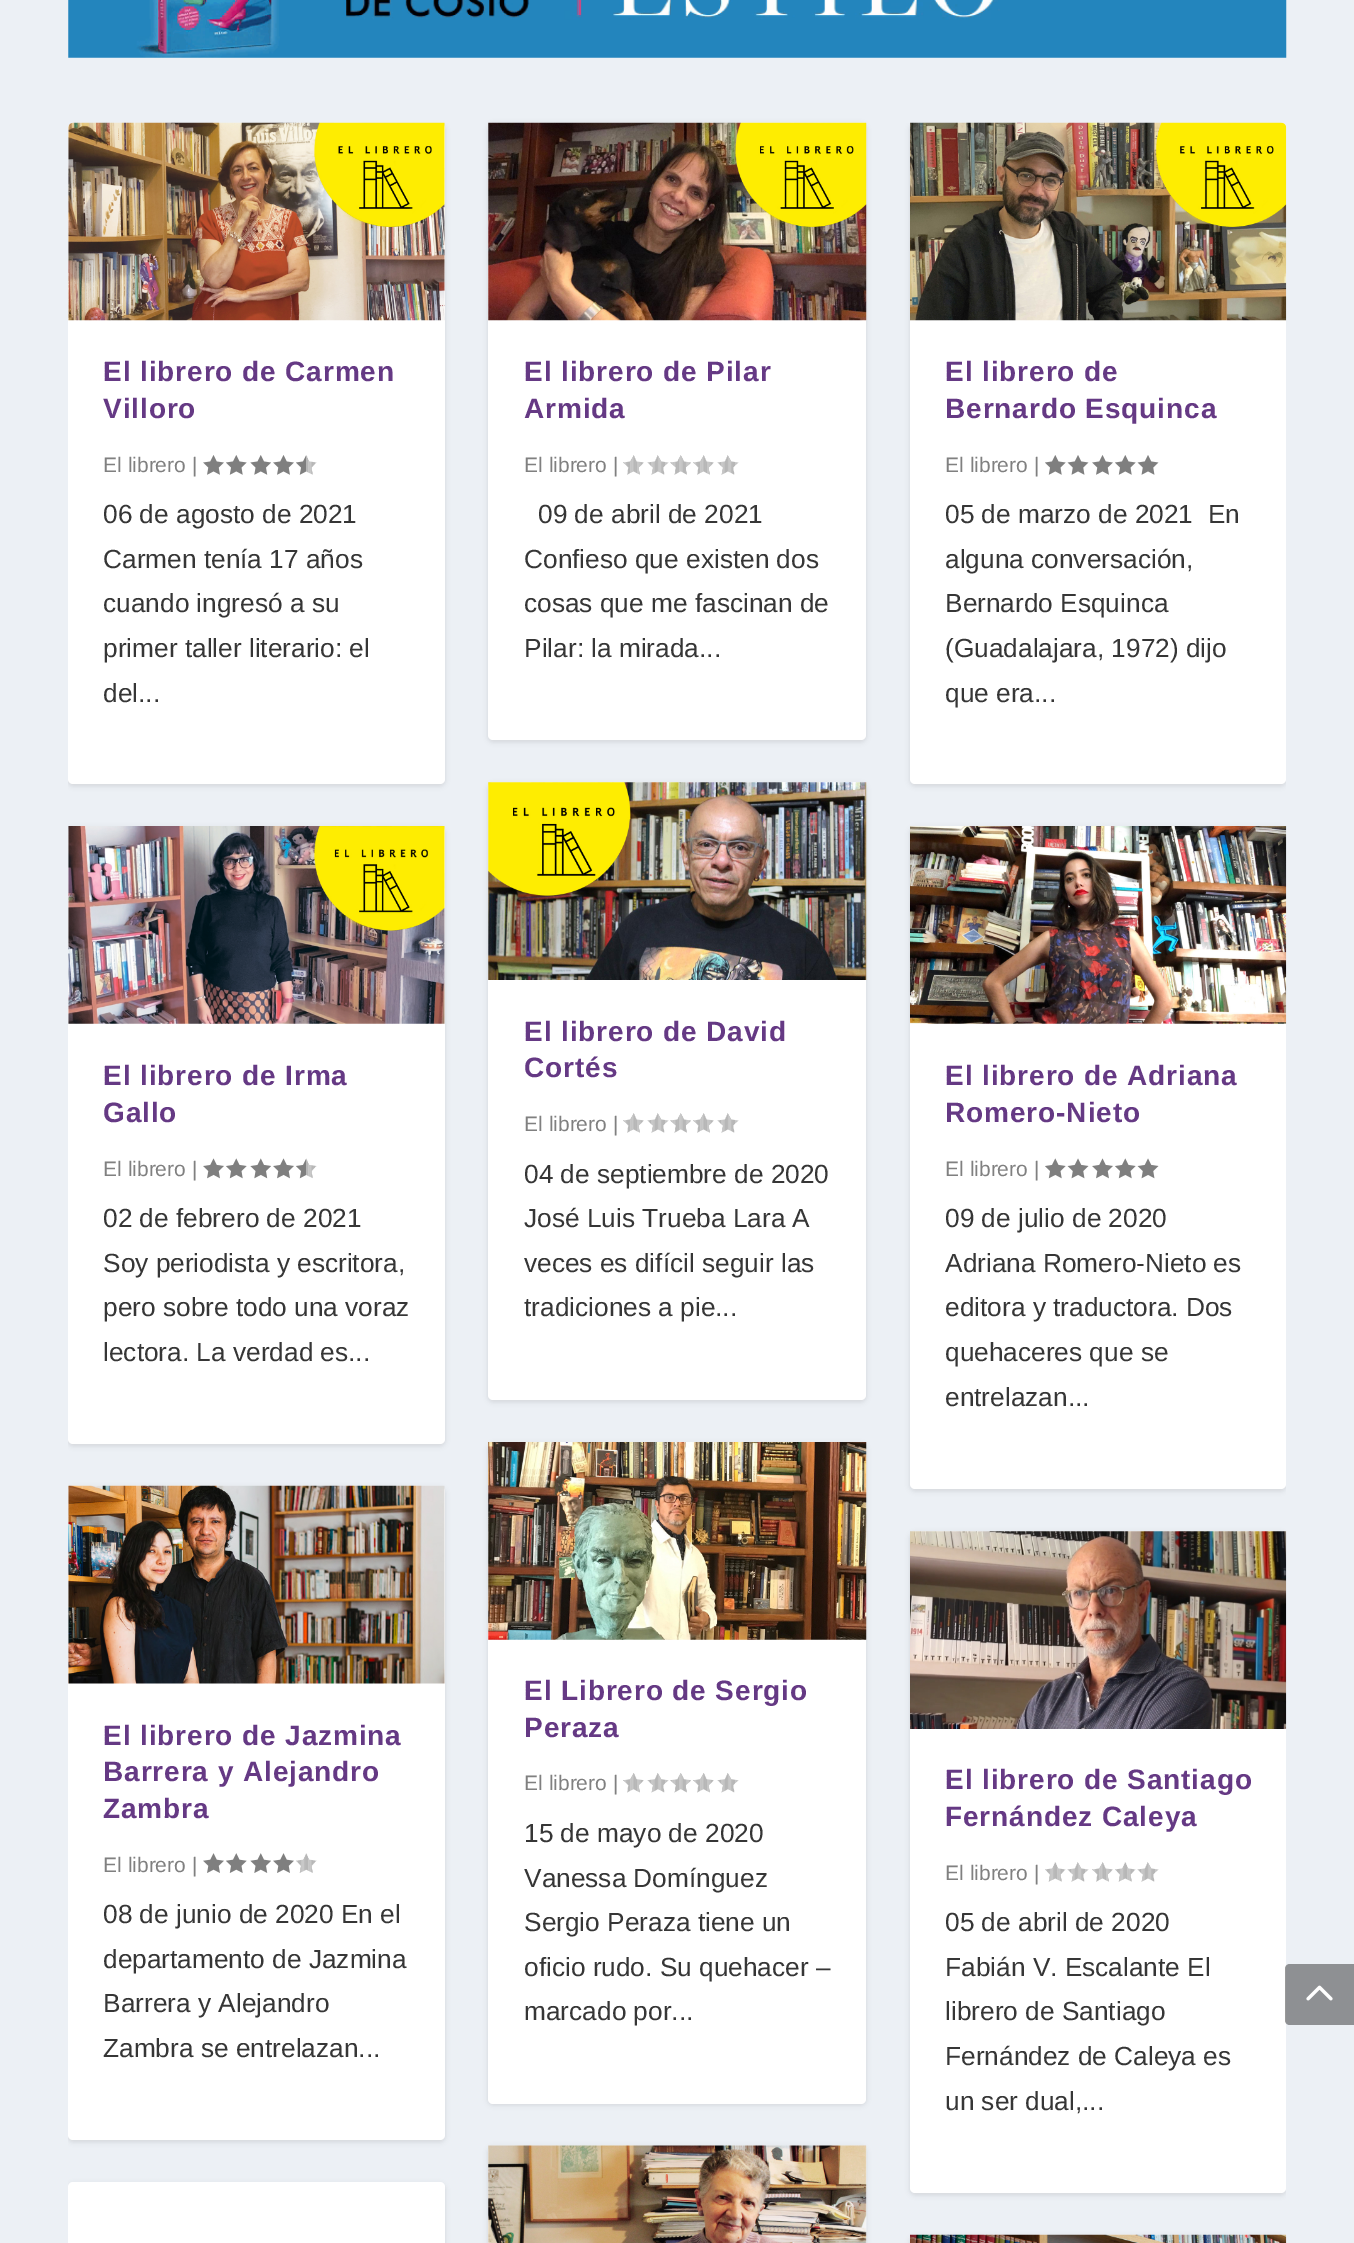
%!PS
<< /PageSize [1354 2243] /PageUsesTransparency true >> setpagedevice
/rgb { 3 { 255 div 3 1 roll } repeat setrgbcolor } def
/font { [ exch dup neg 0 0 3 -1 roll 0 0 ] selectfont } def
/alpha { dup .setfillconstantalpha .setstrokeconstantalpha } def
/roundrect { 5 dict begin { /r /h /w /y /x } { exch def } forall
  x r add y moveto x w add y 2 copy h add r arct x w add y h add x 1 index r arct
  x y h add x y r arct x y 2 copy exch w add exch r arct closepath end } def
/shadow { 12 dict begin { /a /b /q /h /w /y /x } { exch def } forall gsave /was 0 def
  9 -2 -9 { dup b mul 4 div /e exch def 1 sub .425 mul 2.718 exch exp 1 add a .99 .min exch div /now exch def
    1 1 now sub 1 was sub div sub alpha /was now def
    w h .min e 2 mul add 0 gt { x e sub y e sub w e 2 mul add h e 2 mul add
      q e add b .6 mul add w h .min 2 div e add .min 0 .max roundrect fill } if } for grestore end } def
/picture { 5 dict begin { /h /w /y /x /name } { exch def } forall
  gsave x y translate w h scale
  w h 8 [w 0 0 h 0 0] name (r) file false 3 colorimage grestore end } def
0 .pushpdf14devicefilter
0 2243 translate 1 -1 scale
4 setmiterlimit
236 240 245 rgb
0 0 1354 2243 rectfill
(img/1.rgb) 68 0 1219 58 picture
gsave
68 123 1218 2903 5 roundrect clip newpath
0 0 0 rgb
68 124 377 662 5 2.5 0.1 shadow
grestore
255 255 255 rgb
68 123 377 661 5 roundrect fill
(img/2.rgb) 68 122 377 199 picture
(img/3.rgb) 203 455 21 20 picture
(img/4.rgb) 226 455 21 20 picture
(img/5.rgb) 250 455 21 20 picture
(img/3.rgb) 273 455 21 20 picture
(img/6.rgb) 296 455 21 20 picture
gsave
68 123 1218 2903 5 roundrect clip newpath
0 0 0 rgb
68 828 377 618 5 2.5 0.1 shadow
grestore
68 826 377 618 5 roundrect fill
(img/7.rgb) 68 826 377 198 picture
(img/8.rgb) 203 1158 21 21 picture
(img/9.rgb) 226 1158 21 21 picture
(img/10.rgb) 250 1158 21 21 picture
(img/8.rgb) 273 1158 21 21 picture
(img/11.rgb) 296 1158 21 21 picture
gsave
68 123 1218 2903 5 roundrect clip newpath
0 0 0 rgb
68 1488 377 654 5 2.5 0.1 shadow
grestore
68 1486 377 654 5 roundrect fill
(img/12.rgb) 68 1485 377 199 picture
(img/13.rgb) 203 1853 21 20 picture
(img/14.rgb) 226 1853 21 20 picture
(img/15.rgb) 250 1853 21 20 picture
(img/13.rgb) 273 1853 21 20 picture
(img/16.rgb) 296 1853 21 20 picture
gsave
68 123 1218 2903 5 roundrect clip newpath
0 0 0 rgb
68 2184 377 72 5 2.5 0.1 shadow
grestore
68 2182 377 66 5 roundrect fill
0 0 0 rgb
488 124 378 618 5 2.5 0.1 shadow
255 255 255 rgb
488 123 378 617 5 roundrect fill
(img/17.rgb) 488 122 379 199 picture
(img/18.rgb) 623 455 21 20 picture
(img/19.rgb) 647 455 22 20 picture
(img/20.rgb) 670 455 21 20 picture
(img/18.rgb) 693 455 21 20 picture
(img/19.rgb) 717 455 22 20 picture
0 0 0 rgb
488 784 378 618 5 2.5 0.1 shadow
255 255 255 rgb
488 782 378 618 5 roundrect fill
(img/21.rgb) 488 782 379 198 picture
(img/18.rgb) 623 1113 21 20 picture
(img/19.rgb) 647 1113 22 20 picture
(img/20.rgb) 670 1113 21 20 picture
(img/18.rgb) 693 1113 21 20 picture
(img/19.rgb) 717 1113 22 20 picture
0 0 0 rgb
488 1444 378 661 5 2.5 0.1 shadow
255 255 255 rgb
488 1442 378 662 5 roundrect fill
(img/22.rgb) 488 1442 379 198 picture
(img/23.rgb) 623 1773 21 20 picture
(img/24.rgb) 647 1773 22 20 picture
(img/25.rgb) 670 1773 21 20 picture
(img/23.rgb) 693 1773 21 20 picture
(img/24.rgb) 717 1773 22 20 picture
0 0 0 rgb
488 2147 378 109 5 2.5 0.1 shadow
(img/26.rgb) 488 2145 379 98 picture
gsave
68 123 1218 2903 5 roundrect clip newpath
910 124 376 662 5 2.5 0.1 shadow
grestore
255 255 255 rgb
910 123 376 661 5 roundrect fill
(img/27.rgb) 910 122 377 199 picture
(img/4.rgb) 1045 455 21 20 picture
(img/28.rgb) 1067 455 22 20 picture
(img/3.rgb) 1092 455 21 20 picture
(img/4.rgb) 1115 455 21 20 picture
(img/28.rgb) 1137 455 22 20 picture
gsave
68 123 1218 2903 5 roundrect clip newpath
0 0 0 rgb
910 828 376 663 5 2.5 0.1 shadow
grestore
910 826 376 663 5 roundrect fill
(img/29.rgb) 910 826 377 198 picture
(img/9.rgb) 1045 1158 21 21 picture
(img/30.rgb) 1067 1158 22 21 picture
(img/8.rgb) 1092 1158 21 21 picture
(img/9.rgb) 1115 1158 21 21 picture
(img/30.rgb) 1137 1158 22 21 picture
gsave
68 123 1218 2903 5 roundrect clip newpath
0 0 0 rgb
910 1533 376 662 5 2.5 0.1 shadow
grestore
910 1531 376 662 5 roundrect fill
(img/31.rgb) 910 1531 377 198 picture
(img/32.rgb) 1045 1862 21 20 picture
(img/19.rgb) 1067 1862 22 20 picture
(img/18.rgb) 1092 1862 21 20 picture
(img/32.rgb) 1115 1862 21 20 picture
(img/19.rgb) 1137 1862 22 20 picture
gsave
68 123 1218 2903 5 roundrect clip newpath
0 0 0 rgb
910 2237 376 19 5 2.5 0.1 shadow
grestore
(img/33.rgb) 910 2234 377 9 picture
0.4 alpha
0 0 0 rgb
1290 1964 moveto 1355 1964 lineto 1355 2025 lineto 1290 2025 lineto 1287 2025 1285 2023 1285 2020 curveto 1285 1969 lineto 1285 1966 1287 1964 1290 1964 curveto closepath fill
1 alpha
(img/34.rgb) 1306 1985 27 16 picture
/LiberationSans-Bold 28 font
101 57 132 rgb
103 381 moveto 0.9 0 (El librero de Carmen) ashow
103 418 moveto 0.9 0 (Villoro) ashow
/LiberationSans-Regular 21 font
128 128 128 rgb
103 472 moveto (El librero |) show
/LiberationSans-Regular 26.25 font
54 54 54 rgb
[
  [(06 de agosto de 2021) 103 523]
  [(Carmen tenía 17 años) 103 568]
  [(cuando ingresó a su) 103 612]
  [(primer taller literario: el) 103 657]
  [(del...) 103 702]
] { aload pop moveto show } forall
/LiberationSans-Bold 28 font
101 57 132 rgb
103 1085 moveto 0.9 0 (El librero de Irma) ashow
103 1122 moveto 0.9 0 (Gallo) ashow
/LiberationSans-Regular 21 font
128 128 128 rgb
103 1176 moveto (El librero |) show
/LiberationSans-Regular 26.25 font
54 54 54 rgb
[
  [(02 de febrero de 2021) 103 1227]
  [(Soy periodista y escritora,) 103 1272]
  [(pero sobre todo una voraz) 103 1316]
  [(lectora. La verdad es...) 103 1361]
] { aload pop moveto show } forall
/LiberationSans-Bold 28 font
101 57 132 rgb
103 1745 moveto 0.9 0 (El librero de Jazmina) ashow
103 1781 moveto 0.9 0 (Barrera y Alejandro) ashow
103 1818 moveto 0.9 0 (Zambra) ashow
/LiberationSans-Regular 21 font
128 128 128 rgb
103 1872 moveto (El librero |) show
/LiberationSans-Regular 26.25 font
54 54 54 rgb
[
  [(08 de junio de 2020 En el) 103 1923]
  [(departamento de Jazmina) 103 1968]
  [(Barrera y Alejandro) 103 2012]
  [(Zambra se entrelazan...) 103 2057]
] { aload pop moveto show } forall
/LiberationSans-Bold 28 font
101 57 132 rgb
524 381 moveto 0.9 0 (El librero de Pilar) ashow
524 418 moveto 0.9 0 (Armida) ashow
/LiberationSans-Regular 21 font
128 128 128 rgb
524 472 moveto (El librero |) show
/LiberationSans-Regular 26.25 font
54 54 54 rgb
[
  [(09 de abril de 2021) 538 523]
  [(Confieso que existen dos) 524 568]
  [(cosas que me fascinan de) 524 612]
  [(Pilar: la mirada...) 524 657]
] { aload pop moveto show } forall
/LiberationSans-Bold 28 font
101 57 132 rgb
524 1041 moveto 0.9 0 (El librero de David) ashow
524 1077 moveto 0.9 0 (Cortés) ashow
/LiberationSans-Regular 21 font
128 128 128 rgb
524 1131 moveto (El librero |) show
/LiberationSans-Regular 26.25 font
54 54 54 rgb
[
  [(04 de septiembre de 2020) 524 1183]
  [(José Luis Trueba Lara A) 524 1227]
  [(veces es difícil seguir las) 524 1272]
  [(tradiciones a pie...) 524 1316]
] { aload pop moveto show } forall
/LiberationSans-Bold 28 font
101 57 132 rgb
524 1700 moveto 0.9 0 (El Librero de Sergio) ashow
524 1737 moveto 0.9 0 (Peraza) ashow
/LiberationSans-Regular 21 font
128 128 128 rgb
524 1790 moveto (El librero |) show
/LiberationSans-Regular 26.25 font
54 54 54 rgb
[
  [(15 de mayo de 2020) 524 1842]
  [(Vanessa Domínguez) 524 1887]
  [(Sergio Peraza tiene un) 524 1931]
  [(oficio rudo. Su quehacer –) 524 1976]
  [(marcado por...) 524 2020]
] { aload pop moveto show } forall
/LiberationSans-Bold 28 font
101 57 132 rgb
945 381 moveto 0.9 0 (El librero de) ashow
945 418 moveto 0.9 0 (Bernardo Esquinca) ashow
/LiberationSans-Regular 21 font
128 128 128 rgb
945 472 moveto (El librero |) show
/LiberationSans-Regular 26.25 font
54 54 54 rgb
[
  [(05 de marzo de 2021  En) 945 523]
  [(alguna conversación,) 945 568]
  [(Bernardo Esquinca) 945 612]
  [(\(Guadalajara, 1972\) dijo) 945 657]
  [(que era...) 945 702]
] { aload pop moveto show } forall
/LiberationSans-Bold 28 font
101 57 132 rgb
945 1085 moveto 0.9 0 (El librero de Adriana) ashow
945 1122 moveto 0.9 0 (Romero-Nieto) ashow
/LiberationSans-Regular 21 font
128 128 128 rgb
945 1176 moveto (El librero |) show
/LiberationSans-Regular 26.25 font
54 54 54 rgb
[
  [(09 de julio de 2020) 945 1227]
  [(Adriana Romero-Nieto es) 945 1272]
  [(editora y traductora. Dos) 945 1316]
  [(quehaceres que se) 945 1361]
  [(entrelazan...) 945 1406]
] { aload pop moveto show } forall
/LiberationSans-Bold 28 font
101 57 132 rgb
945 1789 moveto 0.9 0 (El librero de Santiago) ashow
945 1826 moveto 0.9 0 (Fernández Caleya) ashow
/LiberationSans-Regular 21 font
128 128 128 rgb
945 1880 moveto (El librero |) show
/LiberationSans-Regular 26.25 font
54 54 54 rgb
[
  [(05 de abril de 2020) 945 1931]
  [(Fabián V. Escalante El) 945 1976]
  [(librero de Santiago) 945 2020]
  [(Fernández de Caleya es) 945 2065]
  [(un ser dual,...) 945 2110]
] { aload pop moveto show } forall
.poppdf14devicefilter showpage
